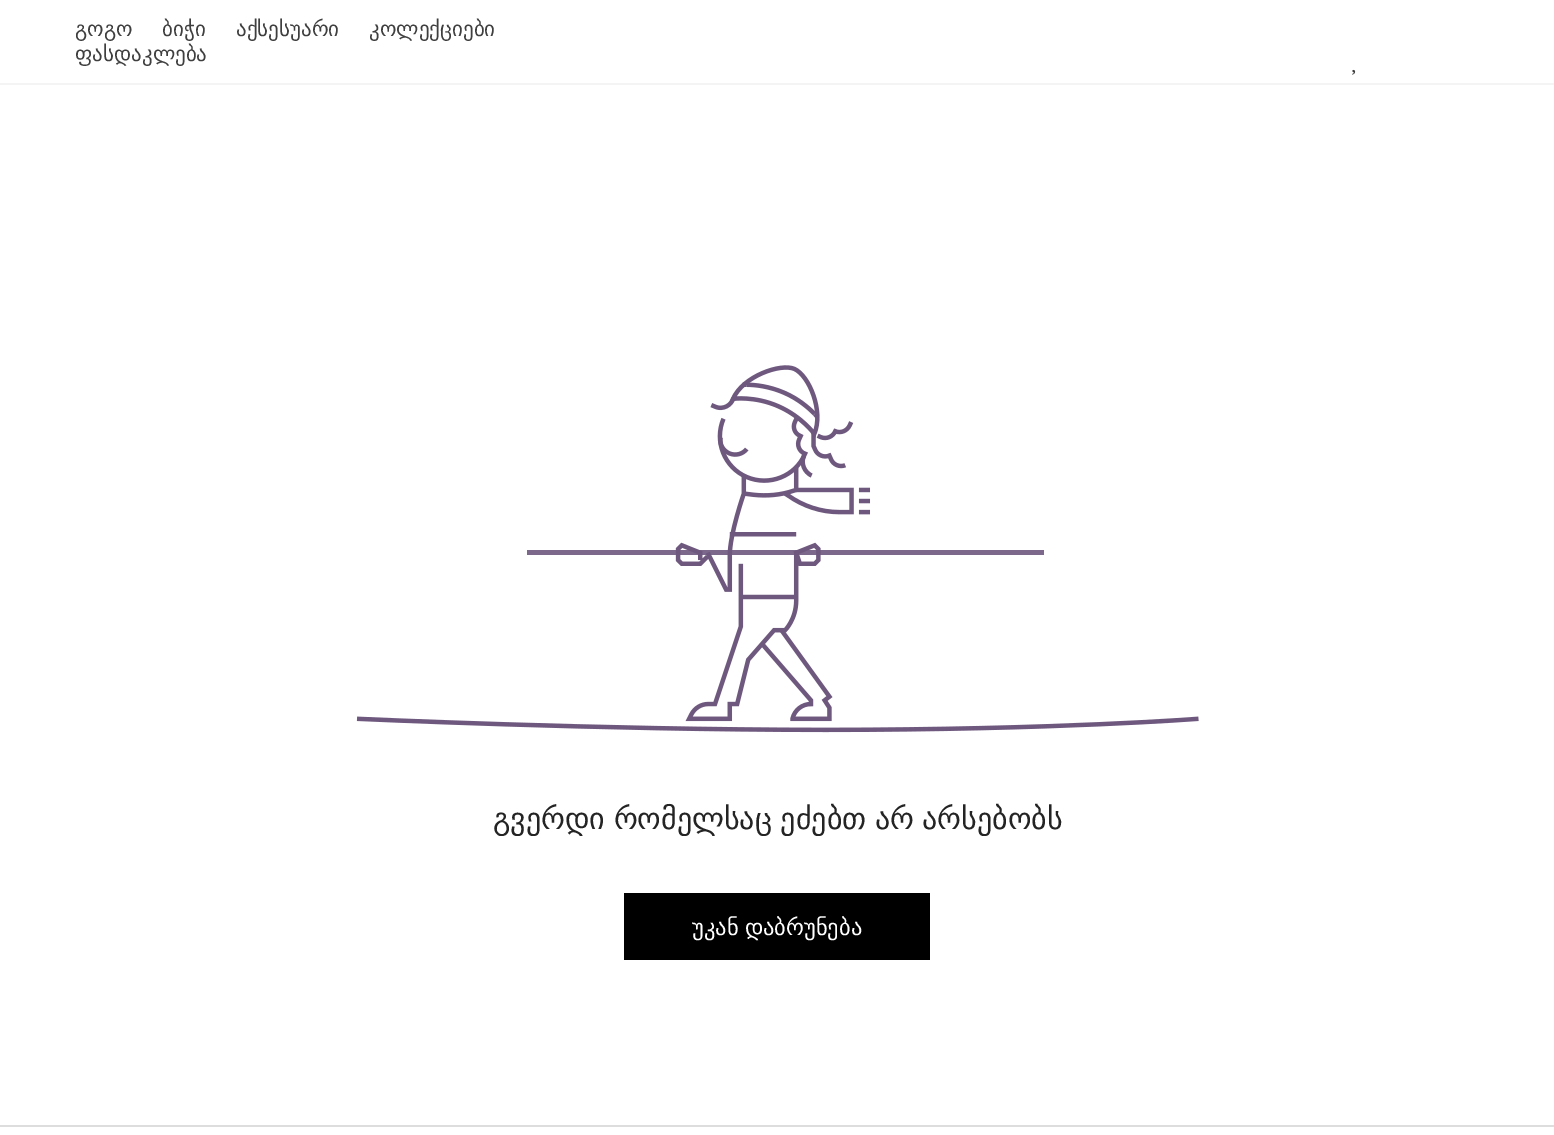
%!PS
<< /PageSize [1554 1135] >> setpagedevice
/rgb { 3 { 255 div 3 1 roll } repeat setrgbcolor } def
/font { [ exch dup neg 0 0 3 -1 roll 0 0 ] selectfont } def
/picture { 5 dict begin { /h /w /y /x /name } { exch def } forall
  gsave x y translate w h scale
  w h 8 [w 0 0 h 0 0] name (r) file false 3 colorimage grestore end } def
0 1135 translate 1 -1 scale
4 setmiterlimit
255 255 255 rgb
0 0 1554 1135 rectfill
244 244 244 rgb
0 83 1554 2 rectfill
(img/1.rgb) 1352 69 4 6 picture
(img/2.rgb) 356 365 843 368 picture
0 0 0 rgb
624 893 306 67 rectfill
221 221 221 rgb
0 1125 1554 2 rectfill
/DejaVuSans-Regular 21 font
63 63 63 rgb
[
  [(გოგო) 75 36]
  [(ბიჭი) 162 36]
  [(აქსესუარი) 236 36]
  [(კოლექციები) 369 36]
  [(ფასდაკლება) 75 61]
] { aload pop moveto show } forall
/DejaVuSans-Regular 30 font
36 36 36 rgb
493 829 moveto -1 0 32 (გვერდი რომელსაც ეძებთ არ არსებობს) widthshow
/DejaVuSans-Regular 22.5 font
255 255 255 rgb
692 935 moveto -1 0 32 (უკან დაბრუნება) widthshow
showpage
